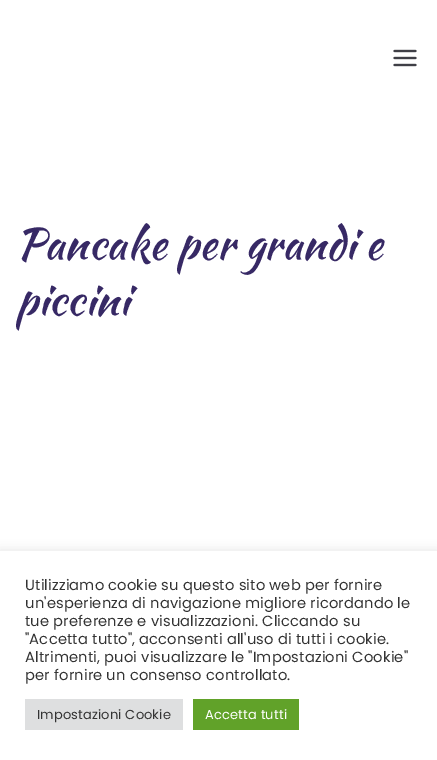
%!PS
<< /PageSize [437 760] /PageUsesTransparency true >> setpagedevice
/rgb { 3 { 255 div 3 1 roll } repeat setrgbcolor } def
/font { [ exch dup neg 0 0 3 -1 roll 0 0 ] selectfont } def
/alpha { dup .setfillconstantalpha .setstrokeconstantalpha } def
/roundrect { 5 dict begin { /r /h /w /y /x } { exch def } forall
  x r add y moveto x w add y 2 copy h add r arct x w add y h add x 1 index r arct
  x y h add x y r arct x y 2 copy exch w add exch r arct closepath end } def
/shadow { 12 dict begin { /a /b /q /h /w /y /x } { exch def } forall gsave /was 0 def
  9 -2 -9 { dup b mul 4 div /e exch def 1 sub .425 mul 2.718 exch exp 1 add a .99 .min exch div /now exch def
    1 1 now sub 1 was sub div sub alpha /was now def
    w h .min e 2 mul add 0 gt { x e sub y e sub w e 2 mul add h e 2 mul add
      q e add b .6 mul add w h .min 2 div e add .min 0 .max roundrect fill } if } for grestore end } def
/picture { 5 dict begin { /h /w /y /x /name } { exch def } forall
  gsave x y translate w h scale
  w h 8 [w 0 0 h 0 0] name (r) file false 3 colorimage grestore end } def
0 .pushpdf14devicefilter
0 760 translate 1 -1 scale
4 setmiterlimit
255 255 255 rgb
0 0 437 760 rectfill
(img/1.rgb) 393 49 24 18 picture
172 171 171 rgb
0 550 437 209 0 5 0.3 shadow
[
  [0 551 437 209 255 255 255]
  [25 699 158 31 222 223 224]
  [193 699 106 31 97 162 41]
] { aload pop rgb rectfill } forall
/KaushanScript-Regular 43.25 font
55 41 101 rgb
16 259 moveto 0.15 0 (Pancake per grandi e) ashow
16 315 moveto 0.15 0 (piccini) ashow
/Poppins-Regular 14.7 font
51 51 51 rgb
25 590 moveto 0.15 0 (Utilizziamo cookie su questo sito web per fornire) ashow
25 608 moveto 0.15 0 (un'esperienza di navigazione migliore ricordando le) ashow
25 626 moveto 0.15 0 (tue preferenze e visualizzazioni. Cliccando su) ashow
25 644 moveto 0.15 0 ("Accetta tutto", acconsenti all'uso di tutti i cookie.) ashow
25 662 moveto 0.15 0 (Altrimenti, puoi visualizzare le "Impostazioni Cookie") ashow
25 680 moveto 0.15 0 (per fornire un consenso controllato.) ashow
/Poppins-Regular 13 font
37 719 moveto 0.15 0 (Impostazioni Cookie) ashow
255 255 255 rgb
205 719 moveto 0.15 0 (Accetta tutti) ashow
.poppdf14devicefilter showpage
